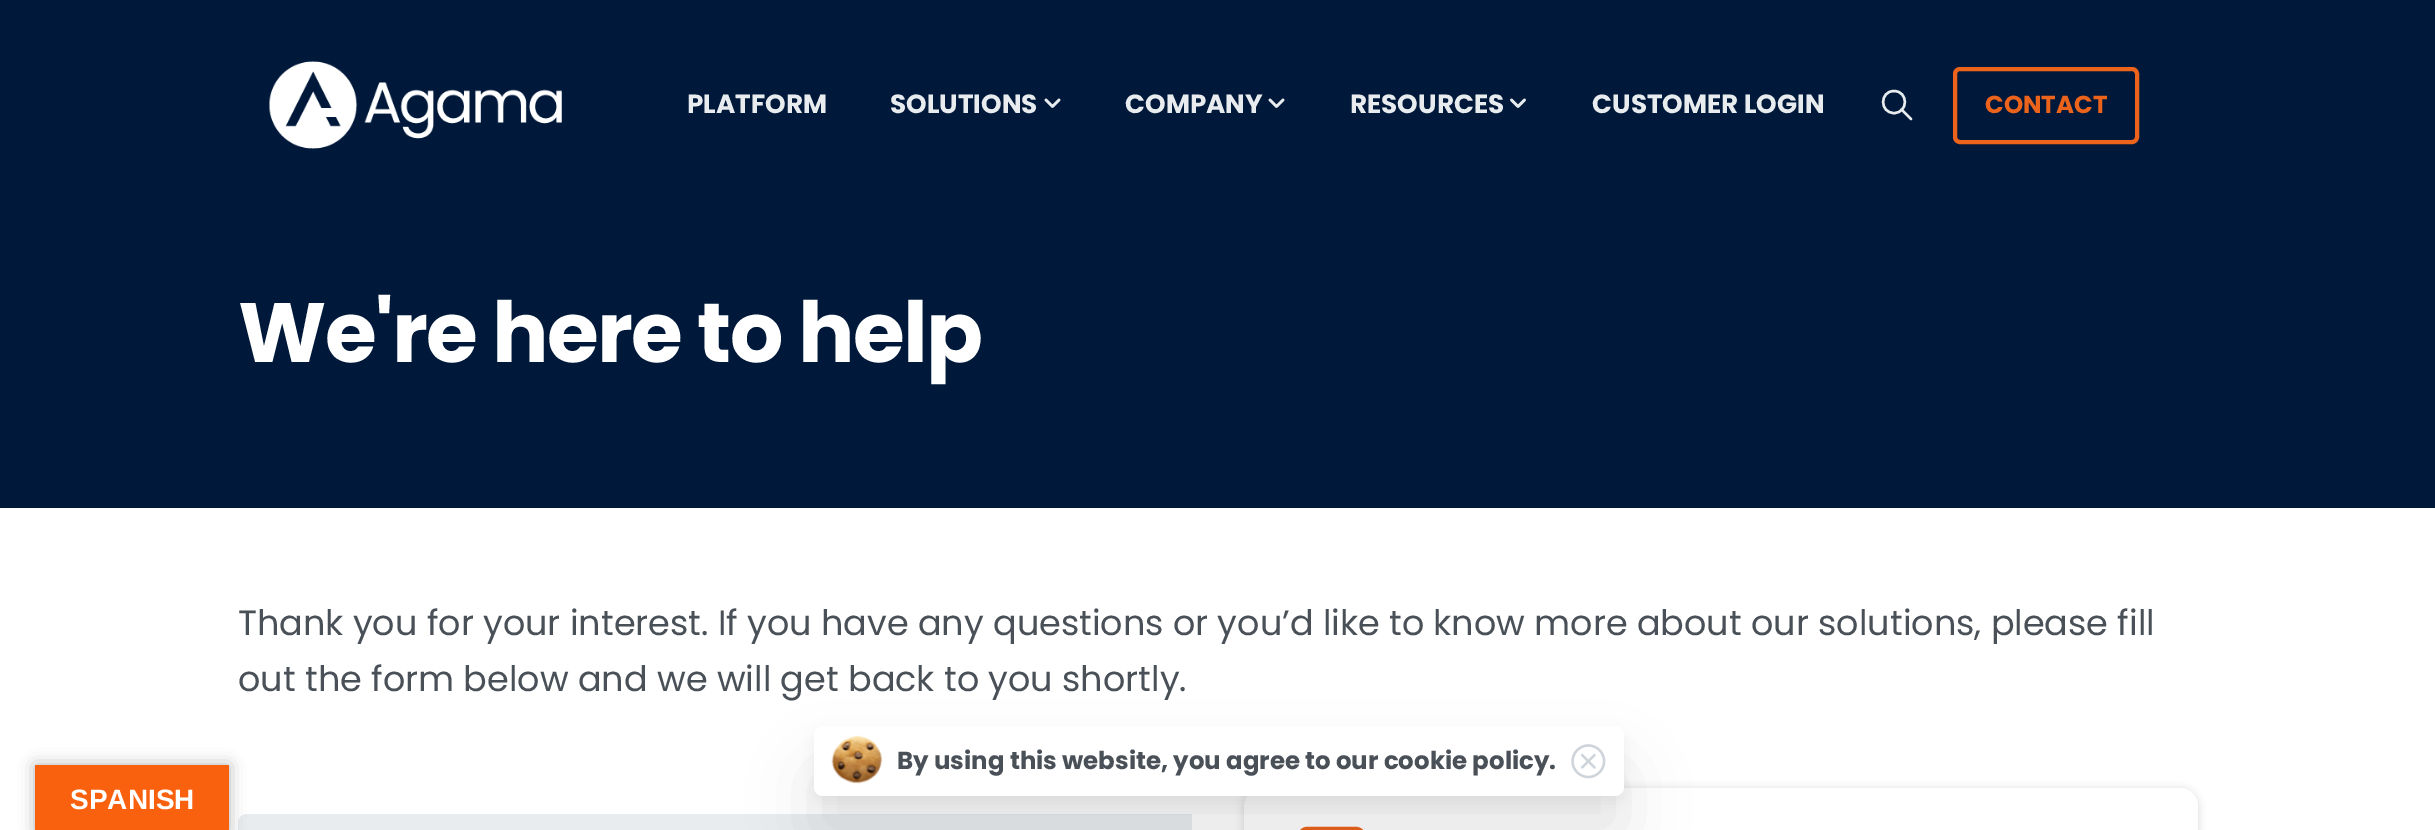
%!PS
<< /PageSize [2435 830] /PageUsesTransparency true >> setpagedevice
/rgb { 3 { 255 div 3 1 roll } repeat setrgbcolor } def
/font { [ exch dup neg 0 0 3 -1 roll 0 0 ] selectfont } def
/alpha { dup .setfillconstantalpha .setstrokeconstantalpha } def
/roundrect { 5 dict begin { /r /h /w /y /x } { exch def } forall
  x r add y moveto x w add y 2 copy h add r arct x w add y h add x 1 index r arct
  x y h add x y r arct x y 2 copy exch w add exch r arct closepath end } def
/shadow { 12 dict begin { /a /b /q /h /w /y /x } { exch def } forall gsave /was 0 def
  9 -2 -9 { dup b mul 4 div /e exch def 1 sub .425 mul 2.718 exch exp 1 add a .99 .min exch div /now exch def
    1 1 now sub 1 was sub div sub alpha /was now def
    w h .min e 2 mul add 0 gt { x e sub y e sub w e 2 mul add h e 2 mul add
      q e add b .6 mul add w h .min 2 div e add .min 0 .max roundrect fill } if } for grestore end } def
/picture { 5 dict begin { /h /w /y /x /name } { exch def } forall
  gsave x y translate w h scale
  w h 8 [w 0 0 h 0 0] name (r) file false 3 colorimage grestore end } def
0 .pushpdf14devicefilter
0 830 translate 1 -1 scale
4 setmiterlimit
255 255 255 rgb
0 0 2435 830 rectfill
0 24 57 rgb
0 0 2435 508 rectfill
(img/1.rgb) 269 61 293 88 picture
233 236 239 rgb
2.6 setlinewidth
1 setlinecap
1 setlinejoin
1046 100 moveto 1052.5 106.5 lineto 1059 100 lineto stroke
1270 100 moveto 1276.5 106.5 lineto 1283 100 lineto stroke
1511.5 100 moveto 1518 106.5 lineto 1524.5 100 lineto stroke
2.4 setlinewidth
1894 113 moveto 1908.5 113 1908.5 91 1894 91 curveto 1879.5 91 1879.5 113 1894 113 curveto closepath 1901.5 109.5 moveto 1911 119 lineto stroke
236 99 27 rgb
4 setlinewidth
0 setlinecap
0 setlinejoin
1955 69 182 73 5 roundrect stroke
233 236 239 rgb
247 814 moveto 1192 814 lineto 1192 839 lineto 247 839 lineto 242 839 238 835 238 830 curveto 238 823 lineto 238 818 242 814 247 814 curveto closepath fill
0 0 0 rgb
1244 789 954 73 18 4.5 0.15 shadow
255 255 255 rgb
1244 788 954 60 18 roundrect fill
236 99 27 rgb
5.2 setlinewidth
1 setlinecap
1 setlinejoin
1332 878.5 moveto 1307 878.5 lineto 1303.5 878.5 1300 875.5 1300 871.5 curveto 1300 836.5 lineto 1300 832.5 1303.5 829.5 1307 829.5 curveto 1356 829.5 lineto 1360 829.5 1363 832.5 1363 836.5 curveto 1363 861 lineto 1342 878.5 moveto 1349 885.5 lineto 1363 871.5 lineto 1301.5 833 moveto 1327.5 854 lineto 1330 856 1333.5 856 1336 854 curveto 1362 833 lineto stroke
0 0 0 rgb
814 768 810 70 9 31 0.1 shadow
814 733 810 70 9 7 0.05 shadow
255 255 255 rgb
814 726 810 70 9 roundrect fill
(img/2.rgb) 831 735 52 49 picture
(img/3.rgb) 1571 744 35 35 picture
0 0 0 rgb
35 765 194 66 0 8 0.3 shadow
249 97 14 rgb
35 765 194 65 rectfill
/Poppins-Bold 26.25 font
233 236 239 rgb
[
  [(PLATFORM) 687 113]
  [(SOLUTIONS) 890 113]
  [(COMPANY) 1125 113]
  [(RESOURCES) 1350 113]
  [(CUSTOMER LOGIN) 1592 113]
] { aload pop moveto show } forall
/Poppins-Bold 24.5 font
236 99 27 rgb
1985 113 moveto (CONTACT) show
/Poppins-Bold 84 font
255 255 255 rgb
238 362 moveto -1.7 0 (We're here to help) ashow
/Poppins-Regular 35 font
73 80 87 rgb
238 635 moveto (Thank you for your interest. If you have any questions or you’d like to know more about our solutions, please fill) show
238 691 moveto (out the form below and we will get back to you shortly.) show
/Poppins-Bold 24.5 font
897 769 moveto (By using this website, you agree to our cookie policy.) show
/LiberationSans-Bold 28 font
255 255 255 rgb
70 809 moveto (SPANISH) show
.poppdf14devicefilter showpage
